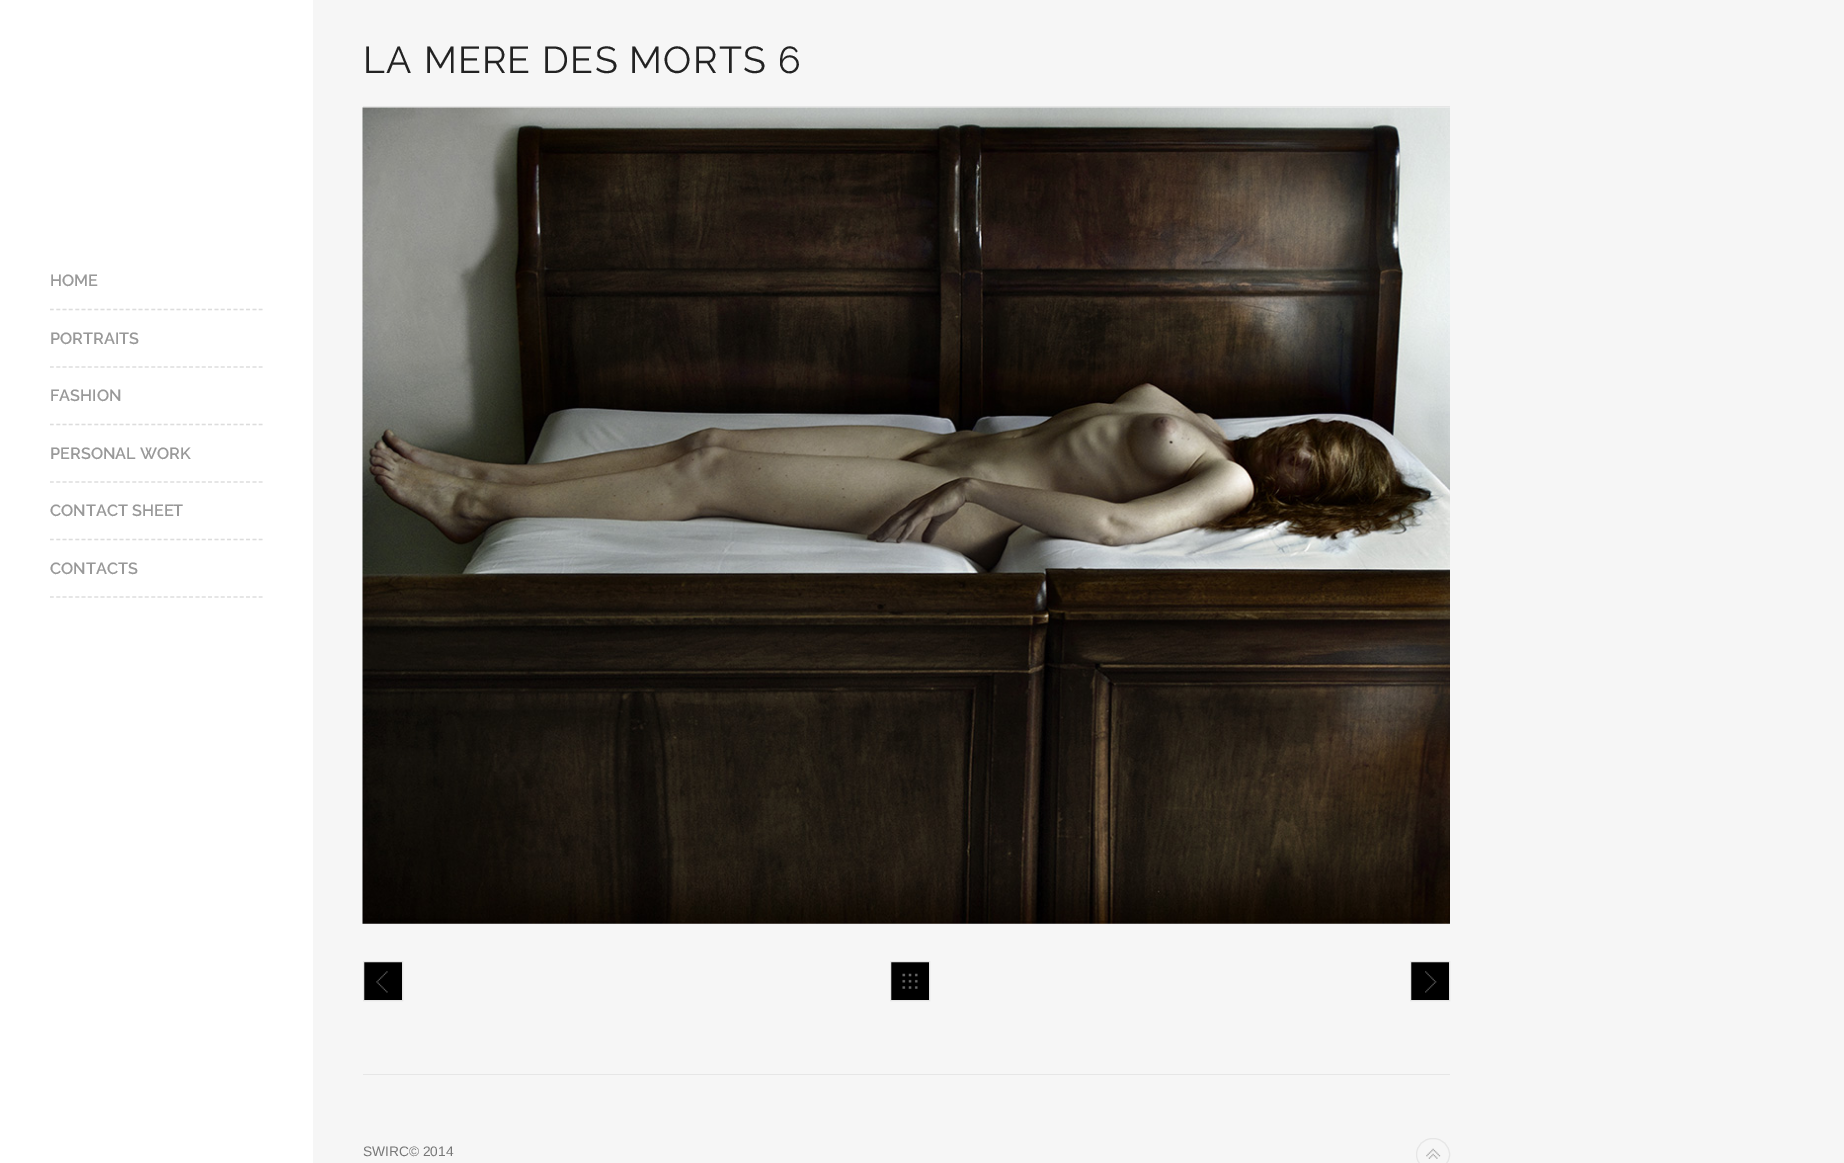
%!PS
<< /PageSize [1844 1163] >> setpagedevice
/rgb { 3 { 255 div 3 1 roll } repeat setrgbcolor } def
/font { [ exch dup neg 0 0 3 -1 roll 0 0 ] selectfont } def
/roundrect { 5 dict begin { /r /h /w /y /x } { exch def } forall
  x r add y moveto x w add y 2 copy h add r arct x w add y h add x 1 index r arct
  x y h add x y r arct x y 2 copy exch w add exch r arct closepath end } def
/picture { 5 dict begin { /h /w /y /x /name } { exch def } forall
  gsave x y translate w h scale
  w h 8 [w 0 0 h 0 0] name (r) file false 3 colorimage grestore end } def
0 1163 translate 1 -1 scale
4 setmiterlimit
246 246 246 rgb
0 0 1844 1163 rectfill
230 230 230 rgb
363 106 1087 1 rectfill
(img/1.rgb) 362 107 1088 817 picture
0 0 0 rgb
364 962 38 38 rectfill
(img/2.rgb) 376 971 12 22 picture
230 230 230 rgb
363.5 961.5 39 39 rectstroke
0 0 0 rgb
891 962 38 38 rectfill
(img/3.rgb) 902 973 16 16 picture
230 230 230 rgb
890.5 961.5 39 39 rectstroke
0 0 0 rgb
1411 962 38 38 rectfill
(img/4.rgb) 1425 971 12 22 picture
230 230 230 rgb
1410.5 961.5 39 39 rectstroke
255 255 255 rgb
0 0 313 1163 rectfill
221 221 221 rgb
1.2 setlinewidth
[3.75 2.58] 0 setdash
50 309.5 moveto 262.5 309.5 lineto stroke
50 367 moveto 262.5 367 lineto stroke
50 424.5 moveto 262.5 424.5 lineto stroke
50 482 moveto 262.5 482 lineto stroke
50 539.5 moveto 262.5 539.5 lineto stroke
50 597 moveto 262.5 597 lineto stroke
230 230 230 rgb
363 1074 1087 1 rectfill
(img/5.rgb) 1426 1148 15 11 picture
1 setlinewidth
[] 0 setdash
1416.5 1138.5 33 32 16 roundrect stroke
/Raleway-Thin 37.5 font
34 34 34 rgb
363 73 moveto 1.25 0 (LA MERE DES MORTS 6) ashow
/Raleway-SemiBold 16.25 font
153 153 153 rgb
[
  [(HOME) 50 286]
  [(PORTRAITS) 50 344]
  [(FASHION) 50 401]
  [(PERSONAL WORK) 50 459]
  [(CONTACT SHEET) 50 516]
  [(CONTACTS) 50 574]
] { aload pop moveto show } forall
/LiberationSans-Regular 13.75 font
119 119 119 rgb
363 1156 moveto (SWIRC© 2014) show
showpage
